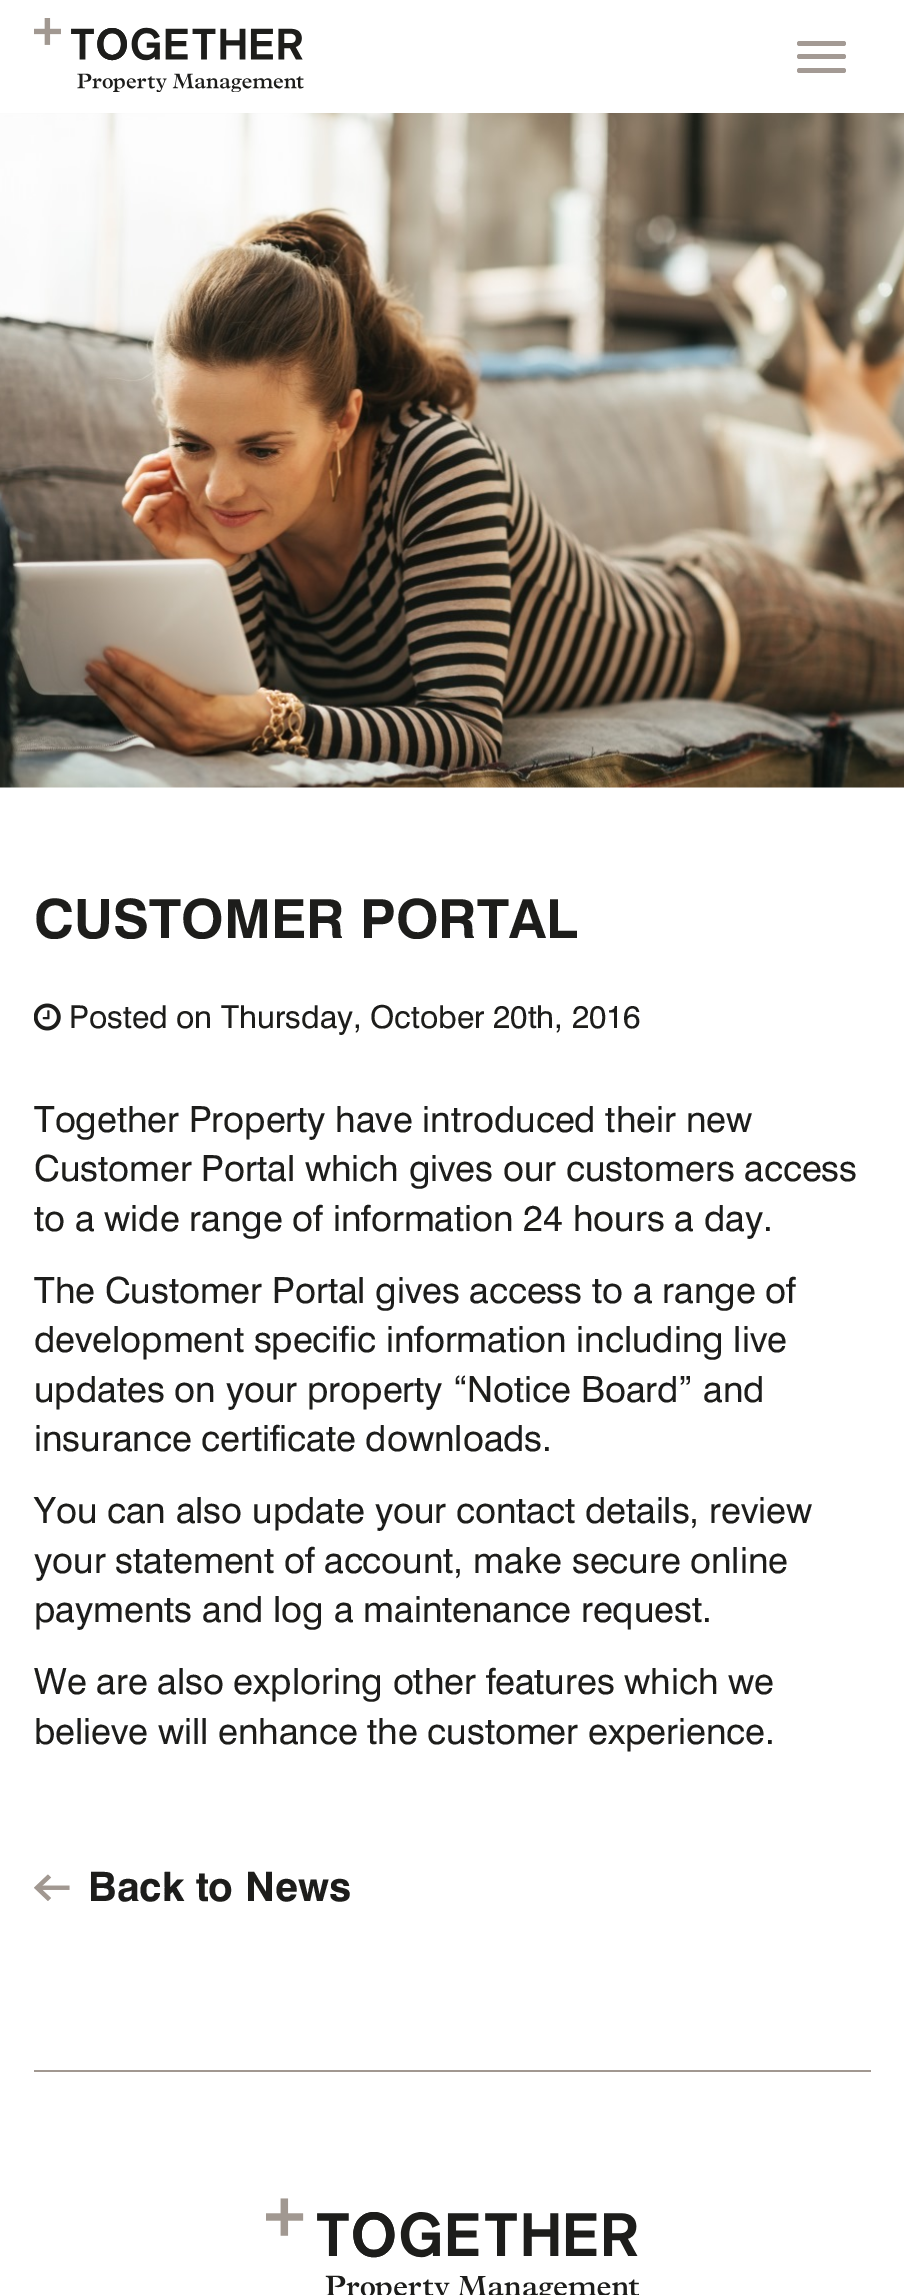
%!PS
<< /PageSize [904 2295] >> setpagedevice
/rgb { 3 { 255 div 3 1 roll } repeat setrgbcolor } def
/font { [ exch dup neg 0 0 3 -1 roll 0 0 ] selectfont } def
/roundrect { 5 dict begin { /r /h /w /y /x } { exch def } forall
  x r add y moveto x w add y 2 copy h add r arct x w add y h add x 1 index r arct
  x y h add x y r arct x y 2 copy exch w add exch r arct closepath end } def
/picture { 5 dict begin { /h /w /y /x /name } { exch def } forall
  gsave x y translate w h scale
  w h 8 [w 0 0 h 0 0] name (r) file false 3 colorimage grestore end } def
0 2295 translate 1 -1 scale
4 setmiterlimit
255 255 255 rgb
0 0 904 2295 rectfill
(img/1.rgb) 34 18 270 74 picture
163 154 148 rgb
797 41 49 5 2.5 roundrect fill
797 54 49 5 2.5 roundrect fill
797 68 49 5 2.5 roundrect fill
(img/2.rgb) 0 113 904 675 picture
(img/3.rgb) 34 1003 27 28 picture
(img/4.rgb) 34 1874 36 27 picture
161 152 145 rgb
34 2070 837 2 rectfill
(img/5.rgb) 266 2198 373 97 picture
/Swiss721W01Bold-Bold 54 font
29 29 27 rgb
34 938 moveto (CUSTOMER PORTAL) show
/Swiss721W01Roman-Regular 31.5 font
69 1028 moveto (Posted on Thursday, October 20th, 2016) show
/Swiss721W01Roman-Regular 36 font
34 1132 moveto (Together Property have introduced their new) show
34 1181 moveto (Customer Portal which gives our customers access) show
gsave
34 878 837 974 rectclip
34 1231 moveto (to a wide range of information 24 hours a day.) show
grestore
[
  [(The Customer Portal gives access to a range of) 34 1303]
  [(development specific information including live) 34 1352]
  [(updates on your property “Notice Board” and) 34 1402]
  [(insurance certificate downloads.) 34 1451]
  [(You can also update your contact details, review) 34 1523]
  [(your statement of account, make secure online) 34 1573]
  [(payments and log a maintenance request.) 34 1622]
  [(We are also exploring other features which we) 34 1694]
  [(believe will enhance the customer experience.) 34 1744]
] { aload pop moveto show } forall
/Swiss721W01Bold-Bold 40.5 font
88 1901 moveto (Back to News) show
showpage
